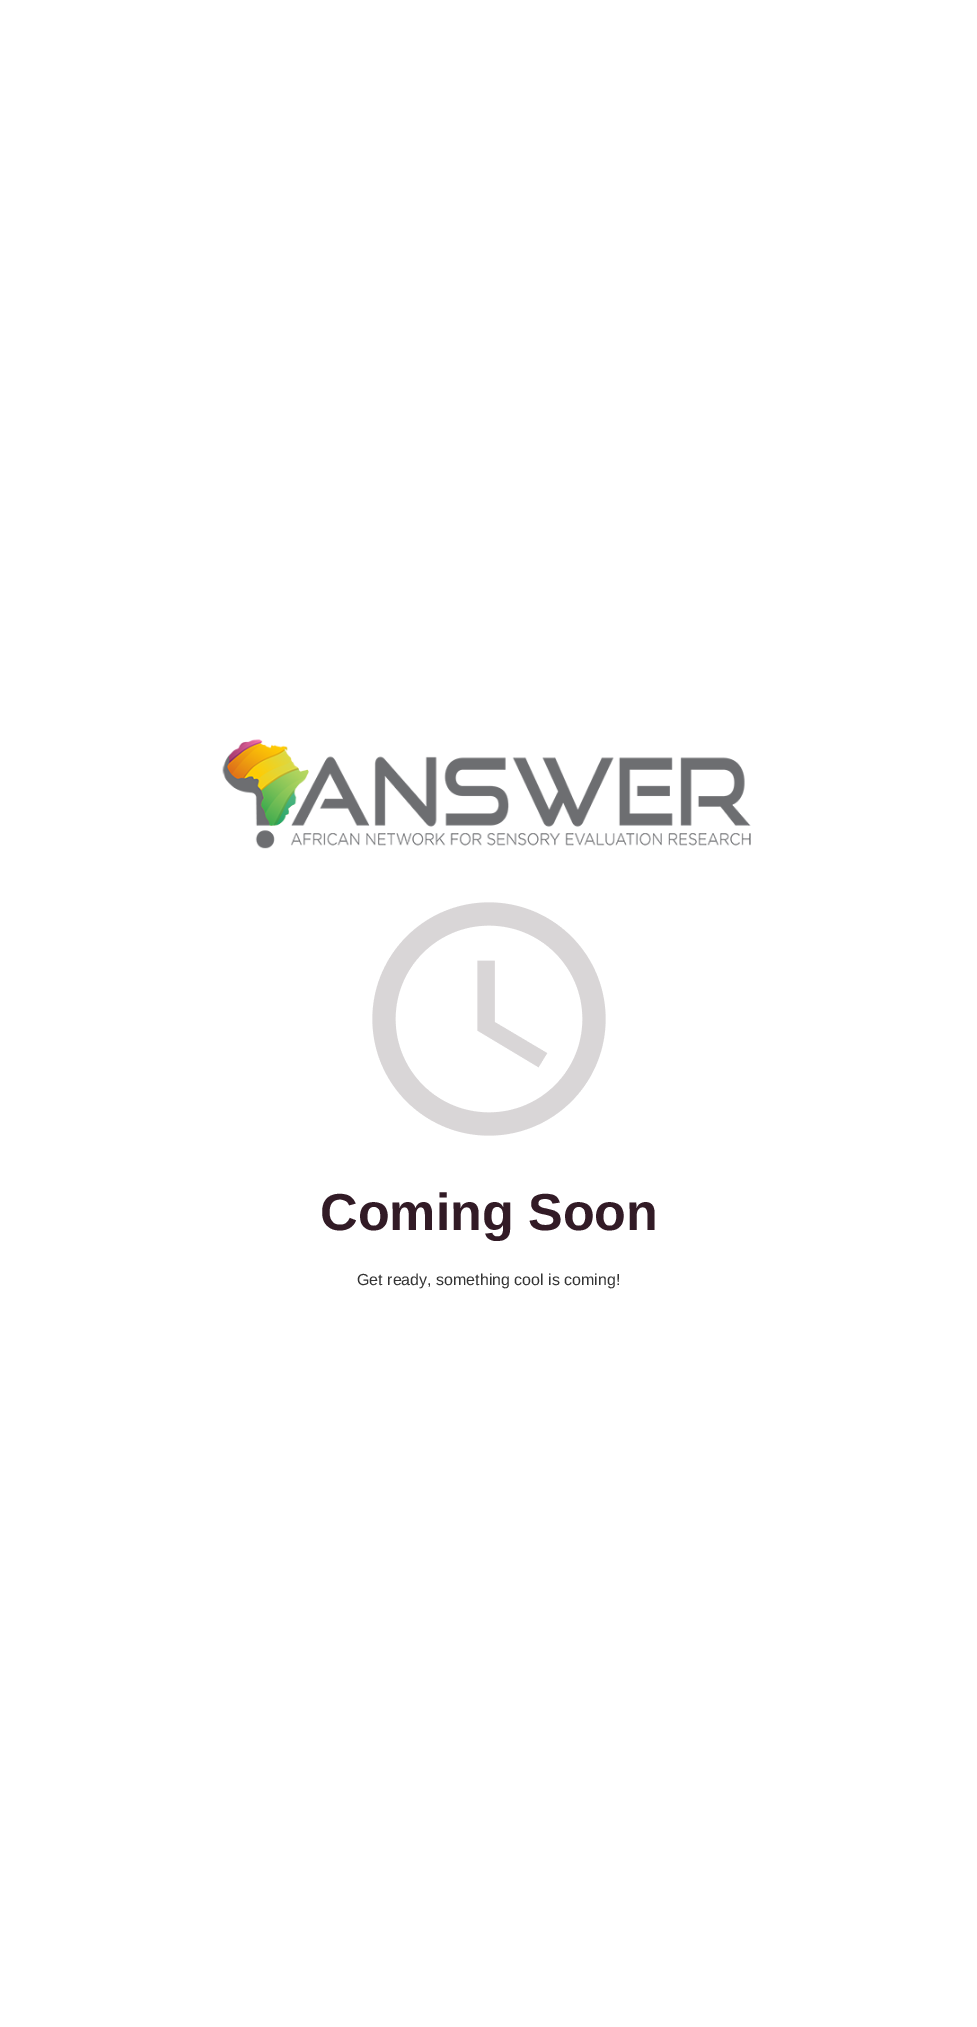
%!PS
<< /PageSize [977 2027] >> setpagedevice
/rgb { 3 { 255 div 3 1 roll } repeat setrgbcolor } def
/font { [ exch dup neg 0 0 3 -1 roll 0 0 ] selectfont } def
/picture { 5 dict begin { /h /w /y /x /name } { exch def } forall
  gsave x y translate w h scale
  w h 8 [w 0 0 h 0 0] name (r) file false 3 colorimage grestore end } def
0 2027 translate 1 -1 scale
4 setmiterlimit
255 255 255 rgb
0 0 977 2027 rectfill
(img/1.rgb) 222 739 529 110 picture
(img/2.rgb) 372 902 234 234 picture
/LiberationSans-Bold 52 font
50 27 38 rgb
320 1230 moveto (Coming Soon) show
/LiberationSans-Regular 16 font
51 51 51 rgb
357 1285 moveto (Get ready, something cool is coming!) show
showpage
